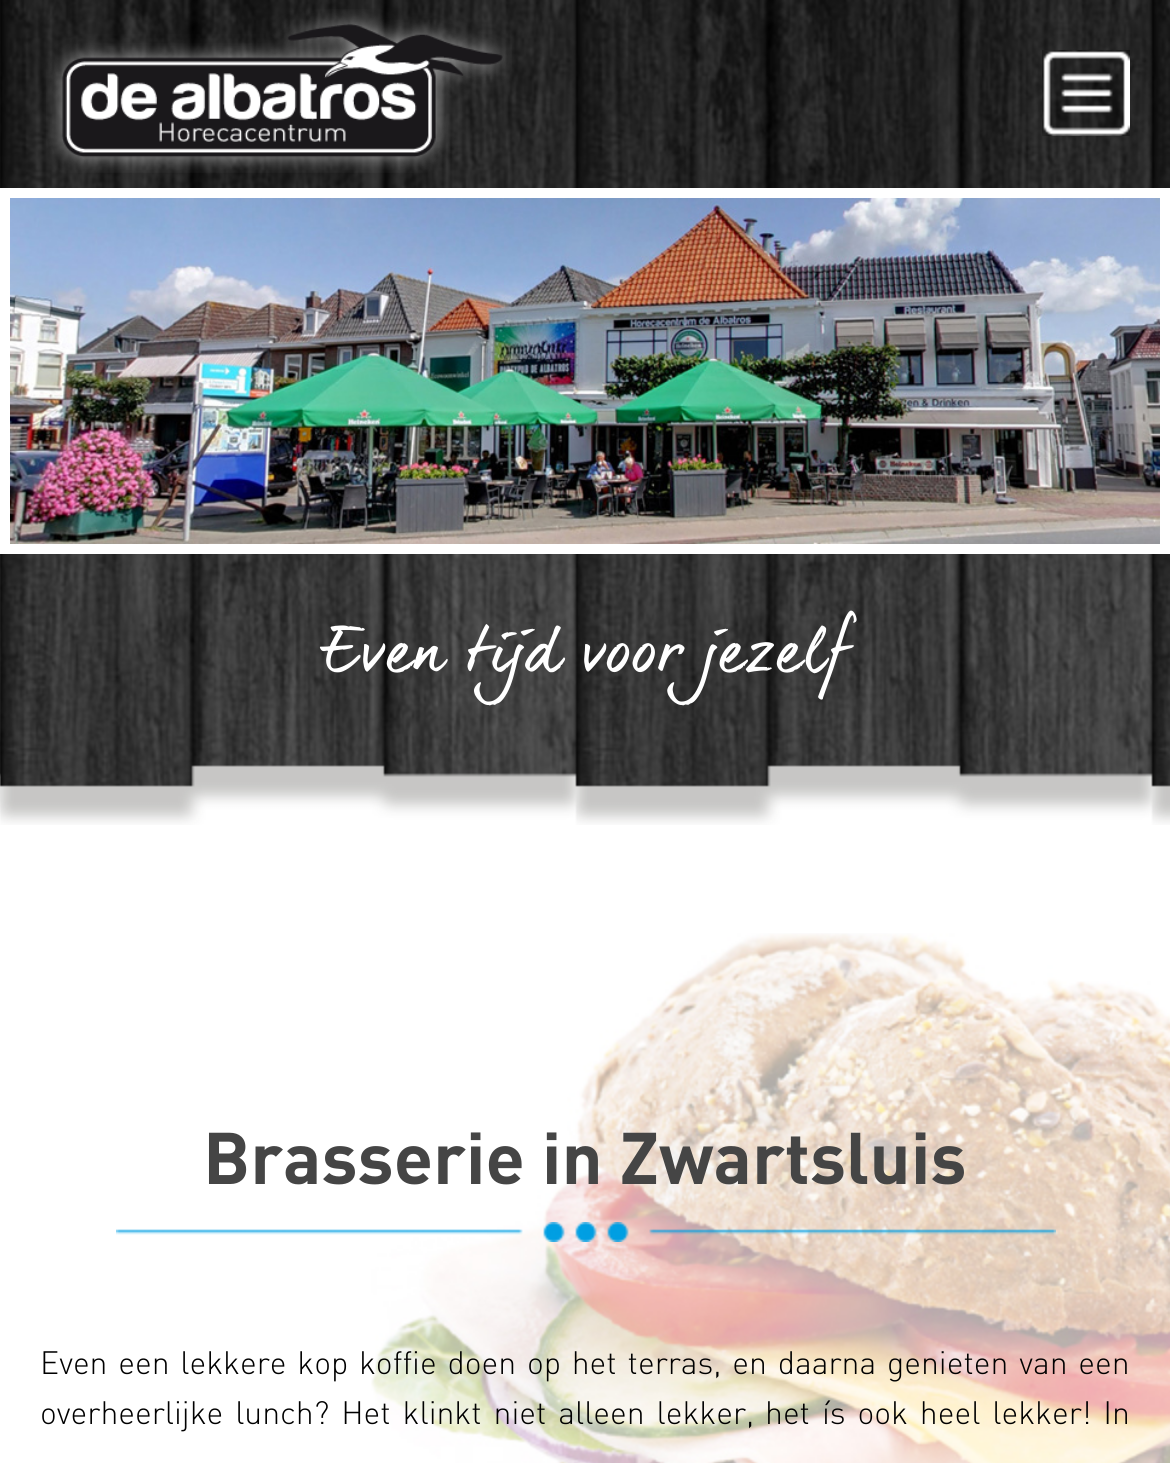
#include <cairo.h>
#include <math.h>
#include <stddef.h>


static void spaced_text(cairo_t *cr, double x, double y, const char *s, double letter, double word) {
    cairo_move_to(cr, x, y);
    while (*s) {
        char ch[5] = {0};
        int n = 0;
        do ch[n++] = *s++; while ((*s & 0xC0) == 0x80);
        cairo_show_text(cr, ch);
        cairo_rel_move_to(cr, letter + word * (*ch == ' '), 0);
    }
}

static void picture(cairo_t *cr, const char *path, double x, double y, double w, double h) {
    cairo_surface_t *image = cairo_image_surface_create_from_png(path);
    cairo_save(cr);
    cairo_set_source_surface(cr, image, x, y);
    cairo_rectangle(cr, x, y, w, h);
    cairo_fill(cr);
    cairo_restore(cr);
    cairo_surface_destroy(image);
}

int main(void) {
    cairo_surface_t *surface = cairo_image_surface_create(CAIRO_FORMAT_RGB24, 1170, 1463);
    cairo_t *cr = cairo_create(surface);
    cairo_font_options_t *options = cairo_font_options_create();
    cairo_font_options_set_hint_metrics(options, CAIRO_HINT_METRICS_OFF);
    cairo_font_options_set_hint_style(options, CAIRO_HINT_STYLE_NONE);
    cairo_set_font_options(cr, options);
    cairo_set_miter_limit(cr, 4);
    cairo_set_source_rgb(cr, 1, 1, 1);
    cairo_paint(cr);
    picture(cr, "img1.png", 0, 0, 1170, 188);
    picture(cr, "img2.png", 46, 9, 466, 164);
    picture(cr, "img3.png", 1042, 50, 88, 86);
    picture(cr, "img4.png", 10, 198, 1150, 346);
    picture(cr, "img5.png", 0, 554, 1170, 271);
    cairo_select_font_face(cr, "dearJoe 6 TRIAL", CAIRO_FONT_SLANT_NORMAL, CAIRO_FONT_WEIGHT_NORMAL);
    cairo_set_font_size(cr, 60);
    cairo_set_source_rgb(cr, 1, 1, 1);
    cairo_move_to(cr, 322, 670);
    cairo_show_text(cr, "Even tijd voor jezelf");
    picture(cr, "img6.png", 371, 933, 799, 530);
    picture(cr, "img7.png", 116, 1222, 940, 20);
    cairo_select_font_face(cr, "DIN", CAIRO_FONT_SLANT_NORMAL, CAIRO_FONT_WEIGHT_BOLD);
    cairo_set_font_size(cr, 72);
    cairo_set_source_rgb(cr, 0.271, 0.271, 0.271);
    cairo_move_to(cr, 203, 1184);
    cairo_show_text(cr, "Brasserie in Zwartsluis");
    cairo_select_font_face(cr, "DIN Light", CAIRO_FONT_SLANT_NORMAL, CAIRO_FONT_WEIGHT_NORMAL);
    cairo_set_font_size(cr, 32);
    cairo_set_source_rgb(cr, 0, 0, 0);
    spaced_text(cr, 40, 1374, "Even een lekkere kop koffie doen op het terras, en daarna genieten van een", 0, 2.6);
    spaced_text(cr, 40, 1424, "overheerlijke lunch? Het klinkt niet alleen lekker,", 0, 3.75);
    spaced_text(cr, 765, 1424, "het ís ook heel lekker! In", 0, 3.75);
    cairo_surface_write_to_png(surface, "page.png");
    cairo_font_options_destroy(options);
    cairo_destroy(cr);
    cairo_surface_destroy(surface);
    return 0;
}
